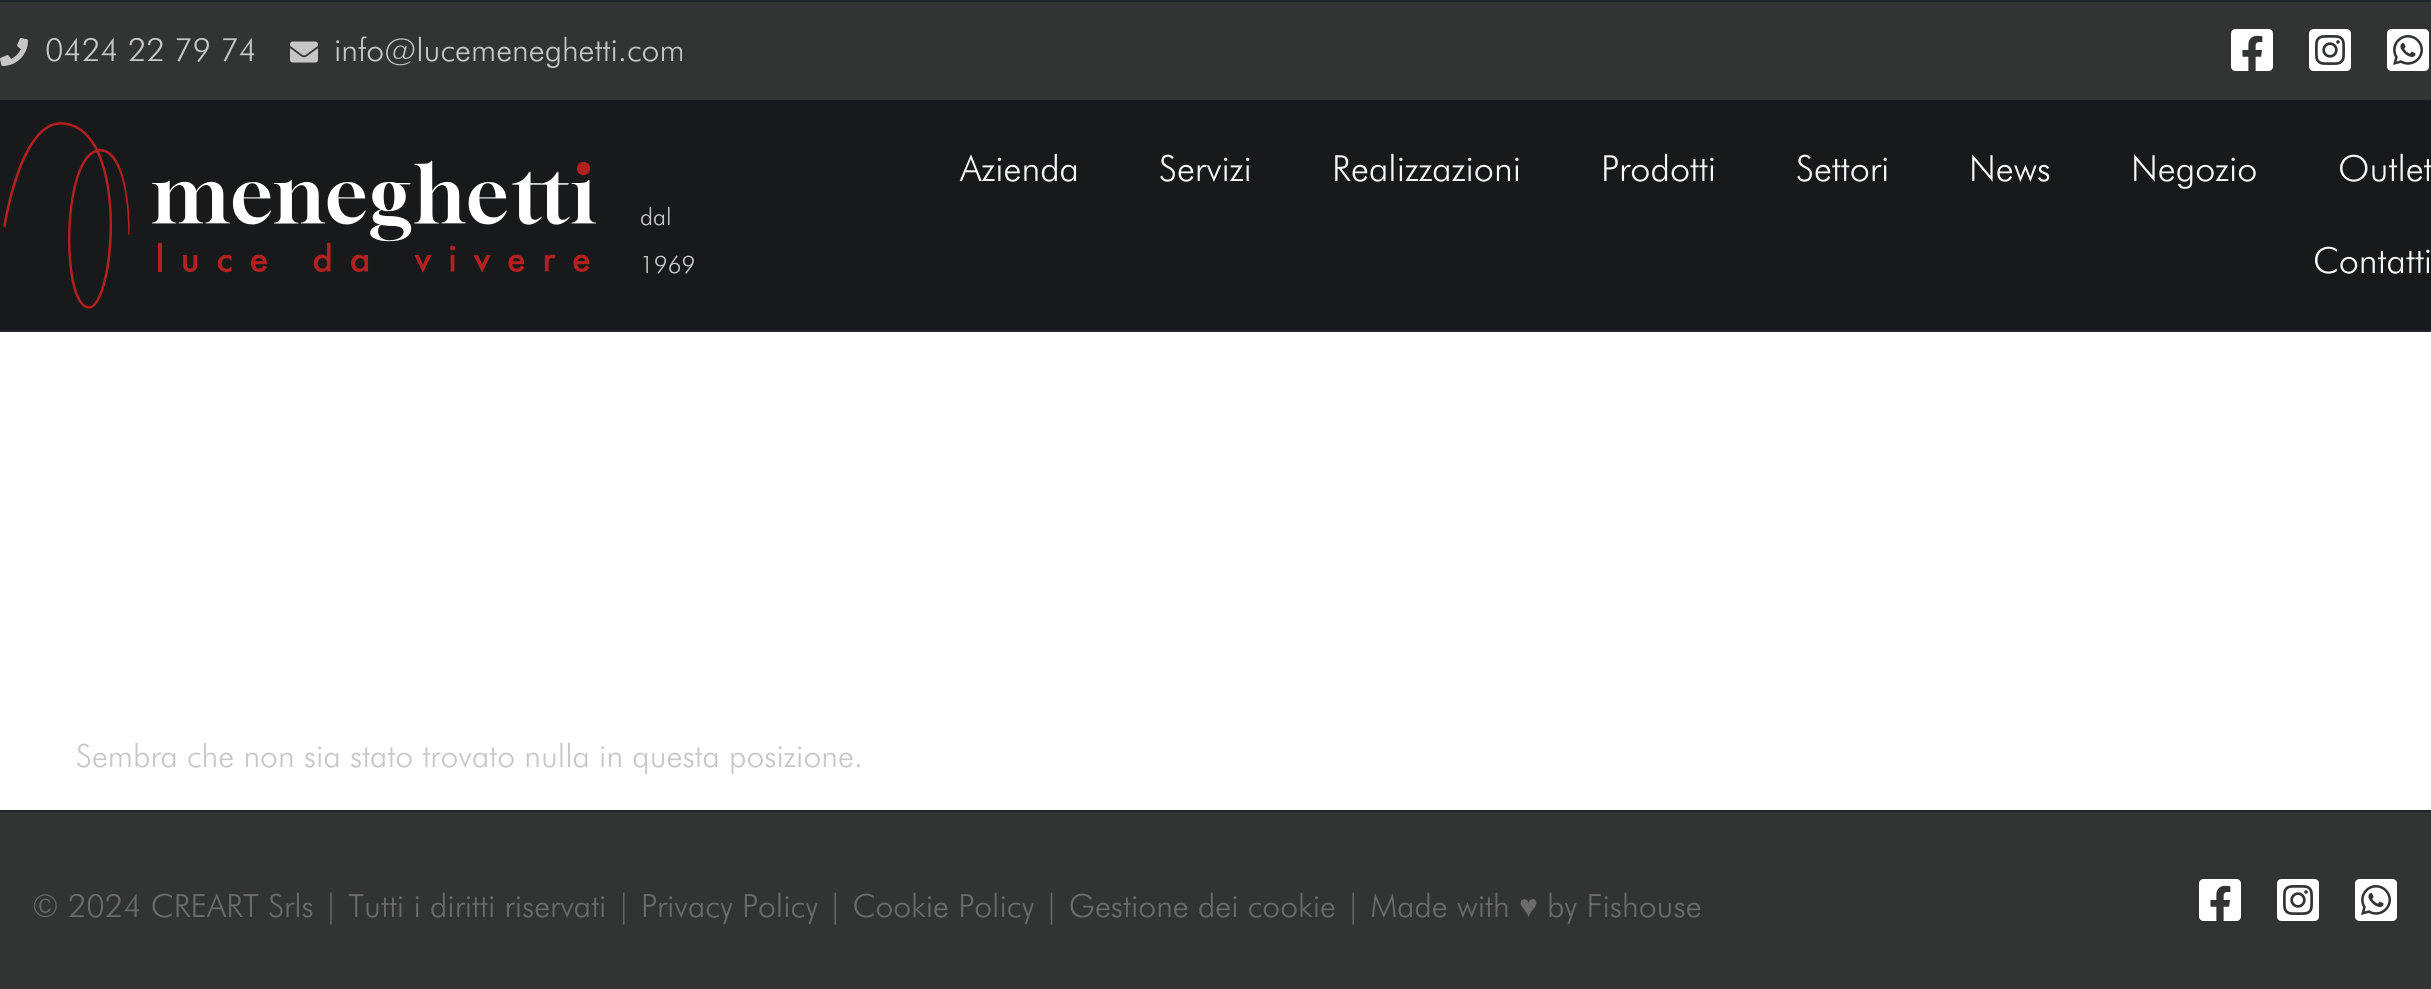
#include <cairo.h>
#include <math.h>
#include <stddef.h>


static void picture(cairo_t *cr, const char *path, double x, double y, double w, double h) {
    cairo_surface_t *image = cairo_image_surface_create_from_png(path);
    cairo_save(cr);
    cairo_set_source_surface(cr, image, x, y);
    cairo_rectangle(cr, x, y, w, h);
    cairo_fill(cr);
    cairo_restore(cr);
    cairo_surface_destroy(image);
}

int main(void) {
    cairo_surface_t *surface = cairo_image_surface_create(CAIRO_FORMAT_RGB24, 2431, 989);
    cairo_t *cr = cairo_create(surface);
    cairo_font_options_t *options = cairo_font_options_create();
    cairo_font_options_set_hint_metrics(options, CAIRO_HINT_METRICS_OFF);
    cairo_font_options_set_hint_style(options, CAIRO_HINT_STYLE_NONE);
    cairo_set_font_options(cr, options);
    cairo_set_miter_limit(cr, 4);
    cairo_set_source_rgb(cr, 1, 1, 1);
    cairo_paint(cr);
    cairo_set_source_rgb(cr, 0.196, 0.204, 0.204);
    cairo_rectangle(cr, 0, 2, 2431, 98);
    cairo_fill(cr);
    cairo_set_source_rgb(cr, 0.133, 0.145, 0.153);
    cairo_rectangle(cr, 0, 0, 2431, 2);
    cairo_fill(cr);
    picture(cr, "img1.png", 0, 38, 28, 28);
    cairo_select_font_face(cr, "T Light", CAIRO_FONT_SLANT_NORMAL, CAIRO_FONT_WEIGHT_NORMAL);
    cairo_set_font_size(cr, 32);
    cairo_set_source_rgb(cr, 0.78, 0.78, 0.78);
    cairo_move_to(cr, 45, 61);
    cairo_show_text(cr, "0424 22 79 74");
    picture(cr, "img2.png", 290, 41, 28, 22);
    cairo_move_to(cr, 334, 61);
    cairo_show_text(cr, "info@lucemeneghetti.com");
    picture(cr, "img3.png", 2231, 29, 42, 42);
    picture(cr, "img4.png", 2309, 29, 42, 42);
    picture(cr, "img5.png", 2387, 29, 42, 42);
    cairo_set_source_rgb(cr, 0.09, 0.098, 0.102);
    cairo_rectangle(cr, 0, 100, 2431, 230);
    cairo_fill(cr);
    cairo_set_source_rgb(cr, 0.133, 0.145, 0.153);
    cairo_rectangle(cr, 0, 330, 2431, 2);
    cairo_fill(cr);
    picture(cr, "img6.png", 3, 122, 593, 187);
    cairo_set_font_size(cr, 24);
    cairo_set_source_rgb(cr, 0.78, 0.78, 0.78);
    cairo_move_to(cr, 640, 225);
    cairo_show_text(cr, "dal");
    cairo_move_to(cr, 640, 273);
    cairo_show_text(cr, "1969");
    cairo_set_font_size(cr, 36);
    cairo_set_source_rgb(cr, 0.965, 0.965, 0.965);
    cairo_move_to(cr, 960, 181);
    cairo_show_text(cr, "Azienda");
    cairo_move_to(cr, 1159, 181);
    cairo_show_text(cr, "Servizi");
    cairo_move_to(cr, 1332, 181);
    cairo_show_text(cr, "Realizzazioni");
    cairo_move_to(cr, 1601, 181);
    cairo_show_text(cr, "Prodotti");
    cairo_move_to(cr, 1796, 181);
    cairo_show_text(cr, "Settori");
    cairo_move_to(cr, 1969, 181);
    cairo_show_text(cr, "News");
    cairo_move_to(cr, 2131, 181);
    cairo_show_text(cr, "Negozio");
    cairo_move_to(cr, 2338, 181);
    cairo_show_text(cr, "Outlet");
    cairo_move_to(cr, 2313, 273);
    cairo_show_text(cr, "Contatti");
    cairo_set_font_size(cr, 32);
    cairo_set_source_rgb(cr, 0.78, 0.78, 0.78);
    cairo_move_to(cr, 76, 767);
    cairo_show_text(cr, "Sembra che non sia stato trovato nulla in questa posizione.");
    cairo_set_source_rgb(cr, 0.196, 0.204, 0.204);
    cairo_rectangle(cr, 0, 812, 2431, 177);
    cairo_fill(cr);
    cairo_set_source_rgb(cr, 0.133, 0.145, 0.153);
    cairo_rectangle(cr, 0, 810, 2431, 2);
    cairo_fill(cr);
    cairo_set_source_rgb(cr, 0.42, 0.42, 0.42);
    cairo_move_to(cr, 32, 917);
    cairo_show_text(cr, "© 2024 CREART Srls | Tutti i diritti riservati | Privacy Policy | Cookie Policy | Gestione dei cookie | Made with");
    cairo_select_font_face(cr, "Liberation Sans", CAIRO_FONT_SLANT_NORMAL, CAIRO_FONT_WEIGHT_NORMAL);
    cairo_move_to(cr, 1519, 917);
    cairo_show_text(cr, "♥");
    cairo_select_font_face(cr, "T Light", CAIRO_FONT_SLANT_NORMAL, CAIRO_FONT_WEIGHT_NORMAL);
    cairo_move_to(cr, 1547, 917);
    cairo_show_text(cr, "by Fishouse");
    picture(cr, "img3.png", 2199, 879, 42, 42);
    picture(cr, "img4.png", 2277, 879, 42, 42);
    picture(cr, "img5.png", 2355, 879, 42, 42);
    cairo_surface_write_to_png(surface, "page.png");
    cairo_font_options_destroy(options);
    cairo_destroy(cr);
    cairo_surface_destroy(surface);
    return 0;
}
